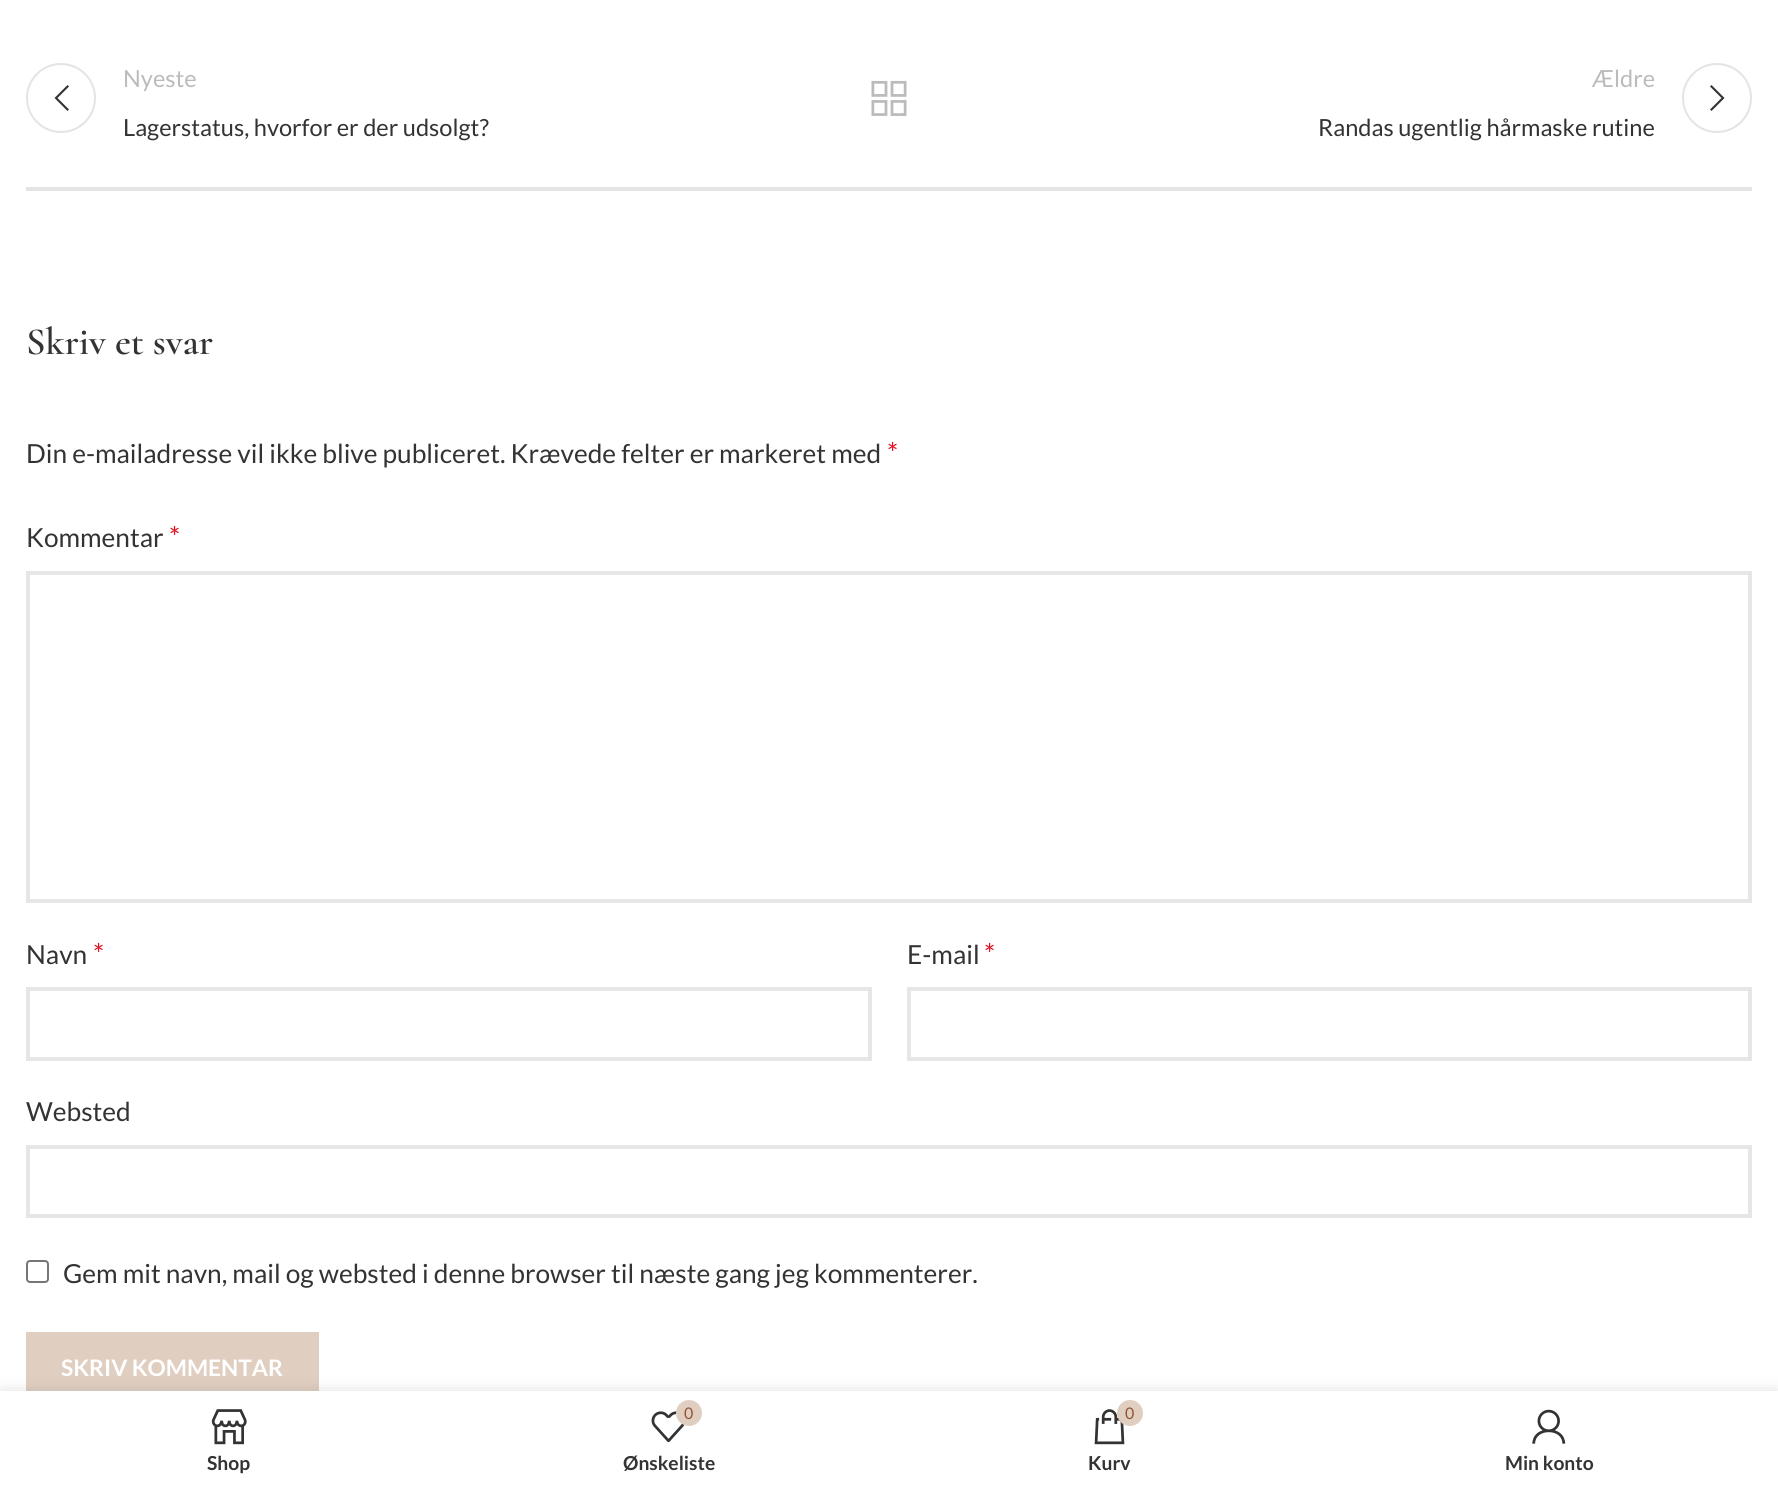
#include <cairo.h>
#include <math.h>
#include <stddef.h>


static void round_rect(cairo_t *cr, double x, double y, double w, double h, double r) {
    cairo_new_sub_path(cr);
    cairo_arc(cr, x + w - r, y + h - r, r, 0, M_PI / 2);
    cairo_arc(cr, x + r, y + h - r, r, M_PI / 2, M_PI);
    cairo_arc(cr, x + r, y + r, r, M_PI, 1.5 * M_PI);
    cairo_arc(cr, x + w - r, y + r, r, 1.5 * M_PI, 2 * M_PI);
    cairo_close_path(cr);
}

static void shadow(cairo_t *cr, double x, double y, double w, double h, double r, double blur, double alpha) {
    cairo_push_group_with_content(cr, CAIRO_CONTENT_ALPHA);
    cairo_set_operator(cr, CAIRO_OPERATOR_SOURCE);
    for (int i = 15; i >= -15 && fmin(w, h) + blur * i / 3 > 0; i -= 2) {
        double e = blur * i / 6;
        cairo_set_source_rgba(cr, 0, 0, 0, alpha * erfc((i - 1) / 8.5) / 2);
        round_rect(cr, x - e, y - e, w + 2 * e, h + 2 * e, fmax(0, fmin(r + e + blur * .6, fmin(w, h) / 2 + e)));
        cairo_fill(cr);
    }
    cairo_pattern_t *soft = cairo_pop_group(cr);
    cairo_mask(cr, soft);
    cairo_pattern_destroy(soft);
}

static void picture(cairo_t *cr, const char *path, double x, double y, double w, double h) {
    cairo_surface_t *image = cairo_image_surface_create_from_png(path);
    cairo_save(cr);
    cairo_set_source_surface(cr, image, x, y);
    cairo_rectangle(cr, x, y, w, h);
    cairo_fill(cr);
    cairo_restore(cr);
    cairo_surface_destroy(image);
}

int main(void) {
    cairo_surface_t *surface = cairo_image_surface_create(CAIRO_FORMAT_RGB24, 1778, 1486);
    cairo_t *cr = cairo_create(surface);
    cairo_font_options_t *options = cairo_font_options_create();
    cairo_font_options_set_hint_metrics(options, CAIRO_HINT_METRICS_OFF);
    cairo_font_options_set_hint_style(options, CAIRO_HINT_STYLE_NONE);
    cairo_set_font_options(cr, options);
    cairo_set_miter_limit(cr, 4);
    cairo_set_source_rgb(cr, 1, 1, 1);
    cairo_paint(cr);
    cairo_set_source_rgb(cr, 0.894, 0.894, 0.894);
    cairo_rectangle(cr, 26, 187, 1726, 4);
    cairo_fill(cr);
    cairo_arc(cr, 61, 98, 34, 0, 2 * M_PI);
    cairo_stroke(cr);
    cairo_set_source_rgb(cr, 0.2, 0.2, 0.2);
    cairo_new_path(cr);
    cairo_move_to(cr, 69, 86.5);
    cairo_line_to(cr, 67.5, 85);
    cairo_line_to(cr, 54.5, 98);
    cairo_line_to(cr, 67.5, 111);
    cairo_line_to(cr, 69, 109.5);
    cairo_line_to(cr, 57.5, 98);
    cairo_close_path(cr);
    cairo_fill(cr);
    cairo_select_font_face(cr, "Lato", CAIRO_FONT_SLANT_NORMAL, CAIRO_FONT_WEIGHT_NORMAL);
    cairo_set_font_size(cr, 23.6);
    cairo_set_source_rgb(cr, 0.733, 0.733, 0.733);
    cairo_move_to(cr, 123, 87);
    cairo_show_text(cr, "Nyeste");
    cairo_set_source_rgb(cr, 0.2, 0.2, 0.2);
    cairo_move_to(cr, 123, 136);
    cairo_show_text(cr, "Lagerstatus, hvorfor er der udsolgt?");
    picture(cr, "img1.png", 871, 80, 36, 36);
    cairo_set_source_rgb(cr, 0.733, 0.733, 0.733);
    cairo_move_to(cr, 1592, 87);
    cairo_show_text(cr, "Ældre");
    cairo_new_path(cr);
    cairo_arc(cr, 1717, 98, 34, 0, 2 * M_PI);
    cairo_set_source_rgb(cr, 0.894, 0.894, 0.894);
    cairo_stroke(cr);
    cairo_set_source_rgb(cr, 0.2, 0.2, 0.2);
    cairo_new_path(cr);
    cairo_move_to(cr, 1710, 86.5);
    cairo_line_to(cr, 1721.5, 98);
    cairo_line_to(cr, 1710, 109.5);
    cairo_line_to(cr, 1711.5, 111);
    cairo_line_to(cr, 1724.5, 98);
    cairo_line_to(cr, 1711.5, 85);
    cairo_close_path(cr);
    cairo_fill(cr);
    cairo_move_to(cr, 1318, 136);
    cairo_show_text(cr, "Randas ugentlig hårmaske rutine");
    cairo_select_font_face(cr, "Cormorant SemiBold", CAIRO_FONT_SLANT_NORMAL, CAIRO_FONT_WEIGHT_NORMAL);
    cairo_set_font_size(cr, 38.5);
    cairo_move_to(cr, 26, 354);
    cairo_show_text(cr, "Skriv et svar");
    cairo_select_font_face(cr, "Lato", CAIRO_FONT_SLANT_NORMAL, CAIRO_FONT_WEIGHT_NORMAL);
    cairo_set_font_size(cr, 26.25);
    cairo_move_to(cr, 26, 463);
    cairo_show_text(cr, "Din e-mailadresse vil ikke blive publiceret. Krævede felter er markeret med");
    cairo_set_font_size(cr, 28);
    cairo_set_source_rgb(cr, 0.878, 0.063, 0.125);
    cairo_move_to(cr, 887, 463);
    cairo_show_text(cr, "*");
    cairo_set_font_size(cr, 26.25);
    cairo_set_source_rgb(cr, 0.2, 0.2, 0.2);
    cairo_move_to(cr, 26, 547);
    cairo_show_text(cr, "Kommentar");
    cairo_set_font_size(cr, 28);
    cairo_set_source_rgb(cr, 0.878, 0.063, 0.125);
    cairo_move_to(cr, 169, 547);
    cairo_show_text(cr, "*");
    cairo_rectangle(cr, 28, 573, 1722, 328);
    cairo_set_source_rgb(cr, 0.902, 0.902, 0.902);
    cairo_set_line_width(cr, 4);
    cairo_stroke(cr);
    cairo_set_font_size(cr, 26.25);
    cairo_set_source_rgb(cr, 0.2, 0.2, 0.2);
    cairo_move_to(cr, 26, 964);
    cairo_show_text(cr, "Navn");
    cairo_set_font_size(cr, 28);
    cairo_set_source_rgb(cr, 0.878, 0.063, 0.125);
    cairo_move_to(cr, 93, 964);
    cairo_show_text(cr, "*");
    cairo_rectangle(cr, 28, 989, 842, 70);
    cairo_set_source_rgb(cr, 0.902, 0.902, 0.902);
    cairo_stroke(cr);
    cairo_set_font_size(cr, 26.25);
    cairo_set_source_rgb(cr, 0.2, 0.2, 0.2);
    cairo_move_to(cr, 907, 964);
    cairo_show_text(cr, "E-mail");
    cairo_set_font_size(cr, 28);
    cairo_set_source_rgb(cr, 0.878, 0.063, 0.125);
    cairo_move_to(cr, 984, 964);
    cairo_show_text(cr, "*");
    cairo_rectangle(cr, 909, 989, 841, 70);
    cairo_set_source_rgb(cr, 0.902, 0.902, 0.902);
    cairo_stroke(cr);
    cairo_set_font_size(cr, 26.25);
    cairo_set_source_rgb(cr, 0.2, 0.2, 0.2);
    cairo_move_to(cr, 26, 1121);
    cairo_show_text(cr, "Websted");
    cairo_rectangle(cr, 28, 1147, 1722, 69);
    cairo_set_source_rgb(cr, 0.902, 0.902, 0.902);
    cairo_stroke(cr);
    round_rect(cr, 27, 1261, 21, 21, 3);
    cairo_set_source_rgb(cr, 0.463, 0.463, 0.463);
    cairo_set_line_width(cr, 2);
    cairo_stroke(cr);
    cairo_set_source_rgb(cr, 0.2, 0.2, 0.2);
    cairo_move_to(cr, 63, 1283);
    cairo_show_text(cr, "Gem mit navn, mail og websted i denne browser til næste gang jeg kommenterer.");
    cairo_set_source_rgb(cr, 0.878, 0.808, 0.757);
    cairo_rectangle(cr, 26, 1332, 293, 59);
    cairo_fill(cr);
    cairo_select_font_face(cr, "Lato", CAIRO_FONT_SLANT_NORMAL, CAIRO_FONT_WEIGHT_BOLD);
    cairo_set_font_size(cr, 22.75);
    cairo_set_source_rgb(cr, 1, 1, 1);
    cairo_move_to(cr, 61, 1376);
    cairo_show_text(cr, "SKRIV KOMMENTAR");
    cairo_set_source_rgb(cr, 0, 0, 0);
    shadow(cr, 0, 1391, 1778, 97, 0, 8, 0.12);
    cairo_set_source_rgb(cr, 1, 1, 1);
    cairo_rectangle(cr, 0, 1391, 1778, 95);
    cairo_fill(cr);
    picture(cr, "img2.png", 211, 1409, 36, 36);
    cairo_set_font_size(cr, 19.25);
    cairo_set_source_rgb(cr, 0.2, 0.2, 0.2);
    cairo_move_to(cr, 207, 1470);
    cairo_show_text(cr, "Shop");
    picture(cr, "img3.png", 651, 1411, 34, 31);
    cairo_set_source_rgb(cr, 0.878, 0.808, 0.757);
    cairo_arc(cr, 689, 1413, 13, 0, 2 * M_PI);
    cairo_fill(cr);
    cairo_select_font_face(cr, "Lato", CAIRO_FONT_SLANT_NORMAL, CAIRO_FONT_WEIGHT_NORMAL);
    cairo_set_font_size(cr, 16);
    cairo_set_source_rgb(cr, 0.576, 0.329, 0.212);
    cairo_move_to(cr, 684, 1419);
    cairo_show_text(cr, "0");
    cairo_select_font_face(cr, "Lato", CAIRO_FONT_SLANT_NORMAL, CAIRO_FONT_WEIGHT_BOLD);
    cairo_set_font_size(cr, 19.25);
    cairo_set_source_rgb(cr, 0.2, 0.2, 0.2);
    cairo_move_to(cr, 623, 1470);
    cairo_show_text(cr, "Ønskeliste");
    picture(cr, "img4.png", 1094, 1409, 31, 36);
    cairo_set_source_rgb(cr, 0.878, 0.808, 0.757);
    cairo_arc(cr, 1130, 1413, 13, 0, 2 * M_PI);
    cairo_fill(cr);
    cairo_select_font_face(cr, "Lato", CAIRO_FONT_SLANT_NORMAL, CAIRO_FONT_WEIGHT_NORMAL);
    cairo_set_font_size(cr, 16);
    cairo_set_source_rgb(cr, 0.576, 0.329, 0.212);
    cairo_move_to(cr, 1125, 1419);
    cairo_show_text(cr, "0");
    cairo_select_font_face(cr, "Lato", CAIRO_FONT_SLANT_NORMAL, CAIRO_FONT_WEIGHT_BOLD);
    cairo_set_font_size(cr, 19.25);
    cairo_set_source_rgb(cr, 0.2, 0.2, 0.2);
    cairo_move_to(cr, 1088, 1470);
    cairo_show_text(cr, "Kurv");
    picture(cr, "img5.png", 1532, 1409, 34, 35);
    cairo_move_to(cr, 1505, 1470);
    cairo_show_text(cr, "Min konto");
    cairo_surface_write_to_png(surface, "page.png");
    cairo_font_options_destroy(options);
    cairo_destroy(cr);
    cairo_surface_destroy(surface);
    return 0;
}
